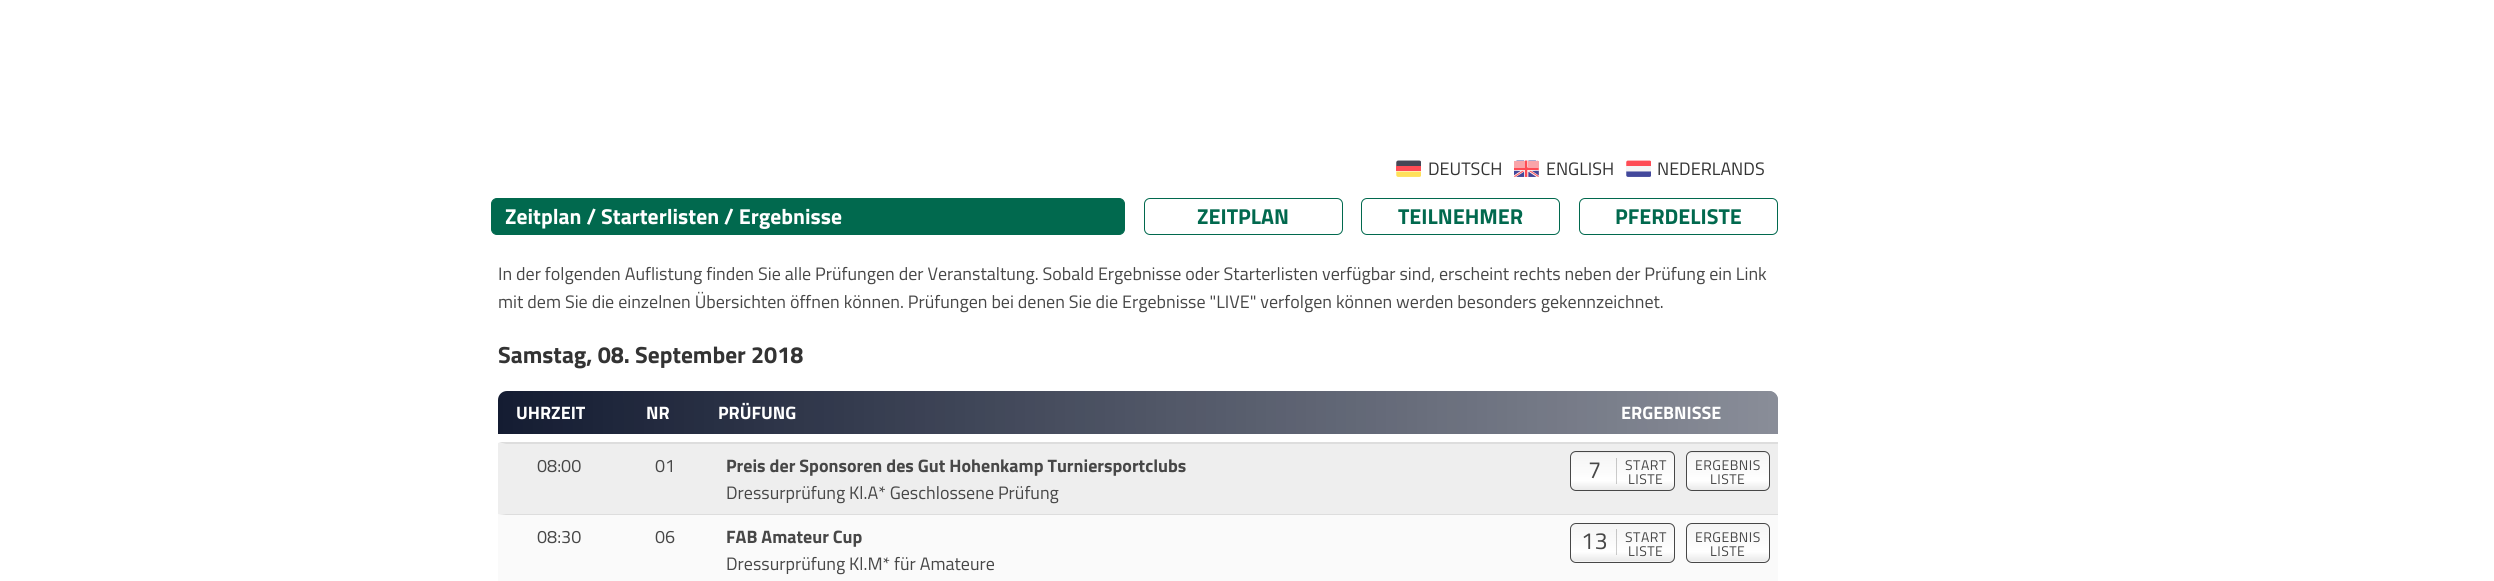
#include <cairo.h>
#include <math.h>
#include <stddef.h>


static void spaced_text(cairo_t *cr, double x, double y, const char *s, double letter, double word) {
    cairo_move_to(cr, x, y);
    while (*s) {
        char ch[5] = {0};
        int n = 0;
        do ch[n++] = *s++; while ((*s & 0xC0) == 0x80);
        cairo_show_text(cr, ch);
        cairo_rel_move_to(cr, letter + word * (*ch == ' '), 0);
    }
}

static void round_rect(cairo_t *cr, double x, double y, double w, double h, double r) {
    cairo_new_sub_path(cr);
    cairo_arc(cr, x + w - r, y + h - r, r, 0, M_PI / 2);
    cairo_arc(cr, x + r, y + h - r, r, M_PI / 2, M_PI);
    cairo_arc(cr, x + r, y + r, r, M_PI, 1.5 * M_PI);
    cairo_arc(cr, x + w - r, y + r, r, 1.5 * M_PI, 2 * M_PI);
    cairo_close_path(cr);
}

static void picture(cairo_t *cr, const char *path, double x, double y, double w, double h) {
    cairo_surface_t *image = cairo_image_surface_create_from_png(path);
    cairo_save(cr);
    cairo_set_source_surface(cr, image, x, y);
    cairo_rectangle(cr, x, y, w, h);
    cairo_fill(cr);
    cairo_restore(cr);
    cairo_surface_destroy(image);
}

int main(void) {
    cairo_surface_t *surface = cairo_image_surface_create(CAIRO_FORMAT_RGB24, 2494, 581);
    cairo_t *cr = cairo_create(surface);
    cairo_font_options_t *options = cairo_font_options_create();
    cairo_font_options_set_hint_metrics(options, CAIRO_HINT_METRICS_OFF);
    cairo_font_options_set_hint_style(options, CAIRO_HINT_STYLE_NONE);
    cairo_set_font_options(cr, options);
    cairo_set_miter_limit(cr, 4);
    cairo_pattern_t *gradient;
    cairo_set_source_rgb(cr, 1, 1, 1);
    cairo_paint(cr);
    picture(cr, "img1.png", 1396, 160, 25, 17);
    cairo_select_font_face(cr, "Titillium Web", CAIRO_FONT_SLANT_NORMAL, CAIRO_FONT_WEIGHT_NORMAL);
    cairo_set_font_size(cr, 18);
    cairo_set_source_rgb(cr, 0.2, 0.2, 0.2);
    cairo_move_to(cr, 1428, 175);
    cairo_show_text(cr, "DEUTSCH");
    picture(cr, "img2.png", 1514, 160, 25, 17);
    cairo_move_to(cr, 1546, 175);
    cairo_show_text(cr, "ENGLISH");
    picture(cr, "img3.png", 1626, 160, 25, 17);
    cairo_move_to(cr, 1657, 175);
    cairo_show_text(cr, "NEDERLANDS");
    cairo_set_source_rgb(cr, 0.004, 0.412, 0.306);
    round_rect(cr, 491.5, 198.5, 633, 36, 5.5);
    cairo_fill_preserve(cr);
    cairo_set_line_width(cr, 1);
    cairo_stroke(cr);
    cairo_select_font_face(cr, "Titillium Web", CAIRO_FONT_SLANT_NORMAL, CAIRO_FONT_WEIGHT_BOLD);
    cairo_set_font_size(cr, 21.6);
    cairo_set_source_rgb(cr, 1, 1, 1);
    cairo_move_to(cr, 505, 224);
    cairo_show_text(cr, "Zeitplan / Starterlisten / Ergebnisse");
    round_rect(cr, 1144.5, 198.5, 198, 36, 5.5);
    cairo_set_source_rgb(cr, 0.004, 0.412, 0.306);
    cairo_stroke(cr);
    cairo_move_to(cr, 1197, 224);
    cairo_show_text(cr, "ZEITPLAN");
    round_rect(cr, 1361.5, 198.5, 198, 36, 5.5);
    cairo_stroke(cr);
    cairo_move_to(cr, 1398, 224);
    cairo_show_text(cr, "TEILNEHMER");
    round_rect(cr, 1579.5, 198.5, 198, 36, 5.5);
    cairo_stroke(cr);
    cairo_move_to(cr, 1615, 224);
    cairo_show_text(cr, "PFERDELISTE");
    cairo_select_font_face(cr, "Titillium Web", CAIRO_FONT_SLANT_NORMAL, CAIRO_FONT_WEIGHT_NORMAL);
    cairo_set_font_size(cr, 18);
    cairo_set_source_rgb(cr, 0.278, 0.278, 0.278);
    cairo_move_to(cr, 498, 280);
    cairo_show_text(cr, "In der folgenden Auflistung finden Sie alle Prüfungen der Veranstaltung. Sobald Ergebnisse oder Starterlisten verfügbar sind, erscheint rechts neben der Prüfung ein Link");
    cairo_move_to(cr, 498, 308);
    cairo_show_text(cr, "mit dem Sie die einzelnen Übersichten öffnen können. Prüfungen bei denen Sie die Ergebnisse \"LIVE\" verfolgen können werden besonders gekennzeichnet.");
    cairo_select_font_face(cr, "Titillium Web", CAIRO_FONT_SLANT_NORMAL, CAIRO_FONT_WEIGHT_BOLD);
    cairo_set_font_size(cr, 23.4);
    cairo_set_source_rgb(cr, 0.2, 0.2, 0.2);
    cairo_move_to(cr, 498, 363);
    cairo_show_text(cr, "Samstag, 08. September 2018");
    cairo_set_source_rgb(cr, 0.082, 0.11, 0.196);
    cairo_new_path(cr);
    cairo_move_to(cr, 507, 391);
    cairo_line_to(cr, 1769, 391);
    cairo_curve_to(cr, 1774, 391, 1778, 395, 1778, 400);
    cairo_line_to(cr, 1778, 434);
    cairo_line_to(cr, 498, 434);
    cairo_line_to(cr, 498, 400);
    cairo_curve_to(cr, 498, 395, 502, 391, 507, 391);
    cairo_close_path(cr);
    cairo_fill(cr);
    gradient = cairo_pattern_create_linear(498, 413, 1778, 412);
    cairo_pattern_add_color_stop_rgba(gradient, 0, 1, 1, 1, 0);
    cairo_pattern_add_color_stop_rgba(gradient, 1, 1, 1, 1, 0.5);
    cairo_set_source(cr, gradient);
    cairo_pattern_destroy(gradient);
    cairo_new_path(cr);
    cairo_move_to(cr, 507, 391);
    cairo_line_to(cr, 1769, 391);
    cairo_curve_to(cr, 1774, 391, 1778, 395, 1778, 400);
    cairo_line_to(cr, 1778, 434);
    cairo_line_to(cr, 498, 434);
    cairo_line_to(cr, 498, 400);
    cairo_curve_to(cr, 498, 395, 502, 391, 507, 391);
    cairo_close_path(cr);
    cairo_fill(cr);
    cairo_set_font_size(cr, 18);
    cairo_set_source_rgb(cr, 1, 1, 1);
    cairo_move_to(cr, 516, 419);
    cairo_show_text(cr, "UHRZEIT");
    cairo_move_to(cr, 646, 419);
    cairo_show_text(cr, "NR");
    cairo_move_to(cr, 718, 419);
    cairo_show_text(cr, "PRÜFUNG");
    cairo_move_to(cr, 1621, 419);
    cairo_show_text(cr, "ERGEBNISSE");
    cairo_set_source_rgb(cr, 0.933, 0.933, 0.933);
    cairo_rectangle(cr, 498, 443, 1280, 71);
    cairo_fill(cr);
    cairo_set_source_rgb(cr, 0.867, 0.867, 0.867);
    cairo_new_path(cr);
    cairo_move_to(cr, 498, 442);
    cairo_line_to(cr, 1778, 442);
    cairo_line_to(cr, 1778, 444);
    cairo_line_to(cr, 506, 444);
    cairo_close_path(cr);
    cairo_fill(cr);
    cairo_select_font_face(cr, "Titillium Web", CAIRO_FONT_SLANT_NORMAL, CAIRO_FONT_WEIGHT_NORMAL);
    cairo_set_source_rgb(cr, 0.278, 0.278, 0.278);
    cairo_move_to(cr, 537, 472);
    cairo_show_text(cr, "08:00");
    cairo_move_to(cr, 655, 472);
    cairo_show_text(cr, "01");
    cairo_select_font_face(cr, "Titillium Web", CAIRO_FONT_SLANT_NORMAL, CAIRO_FONT_WEIGHT_BOLD);
    cairo_move_to(cr, 726, 472);
    cairo_show_text(cr, "Preis der Sponsoren des Gut Hohenkamp Turniersportclubs");
    cairo_select_font_face(cr, "Titillium Web", CAIRO_FONT_SLANT_NORMAL, CAIRO_FONT_WEIGHT_NORMAL);
    cairo_move_to(cr, 726, 499);
    cairo_show_text(cr, "Dressurprüfung Kl.A* Geschlossene Prüfung");
    cairo_save(cr);
    round_rect(cr, 1570, 451, 105, 40, 6);
    cairo_clip(cr);
    gradient = cairo_pattern_create_linear(1623, 453, 1623, 415);
    cairo_pattern_add_color_stop_rgba(gradient, 0, 0.914, 0.914, 0.914, 1);
    cairo_pattern_add_color_stop_rgba(gradient, 0.25, 1, 1, 1, 1);
    cairo_pattern_add_color_stop_rgba(gradient, 0.5, 0.984, 0.984, 0.984, 1);
    cairo_pattern_add_color_stop_rgba(gradient, 0.75, 0.973, 0.973, 0.973, 1);
    cairo_pattern_add_color_stop_rgba(gradient, 1, 0.957, 0.957, 0.957, 1);
    cairo_set_source(cr, gradient);
    cairo_pattern_destroy(gradient);
    cairo_rectangle(cr, 1570, 451, 105, 2);
    cairo_fill(cr);
    gradient = cairo_pattern_create_linear(1623, 490, 1623, 453);
    cairo_pattern_add_color_stop_rgba(gradient, 0, 0.914, 0.914, 0.914, 1);
    cairo_pattern_add_color_stop_rgba(gradient, 0.25, 1, 1, 1, 1);
    cairo_pattern_add_color_stop_rgba(gradient, 0.5, 0.984, 0.984, 0.984, 1);
    cairo_pattern_add_color_stop_rgba(gradient, 0.75, 0.973, 0.973, 0.973, 1);
    cairo_pattern_add_color_stop_rgba(gradient, 1, 0.957, 0.957, 0.957, 1);
    cairo_set_source(cr, gradient);
    cairo_pattern_destroy(gradient);
    cairo_rectangle(cr, 1570, 453, 105, 37);
    cairo_fill(cr);
    cairo_restore(cr);
    gradient = cairo_pattern_create_linear(1623, 490, 1623, 453);
    cairo_pattern_add_color_stop_rgba(gradient, 0, 0.729, 0.729, 0.729, 1);
    cairo_pattern_add_color_stop_rgba(gradient, 0.25, 0.8, 0.8, 0.8, 1);
    cairo_pattern_add_color_stop_rgba(gradient, 0.5, 0.788, 0.788, 0.788, 1);
    cairo_pattern_add_color_stop_rgba(gradient, 0.75, 0.776, 0.776, 0.776, 1);
    cairo_pattern_add_color_stop_rgba(gradient, 1, 0.765, 0.765, 0.765, 1);
    cairo_set_source(cr, gradient);
    cairo_pattern_destroy(gradient);
    cairo_rectangle(cr, 1616, 458, 1, 26);
    cairo_fill(cr);
    round_rect(cr, 1570.5, 451.5, 104, 39, 5.5);
    cairo_set_source_rgb(cr, 0.278, 0.278, 0.278);
    cairo_stroke(cr);
    cairo_set_font_size(cr, 23.4);
    spaced_text(cr, 1588, 478, "7", 0.5, 0);
    cairo_set_font_size(cr, 14);
    spaced_text(cr, 1625, 470, "START", 0.5, 0);
    spaced_text(cr, 1628, 484, "LISTE", 0.5, 0);
    cairo_save(cr);
    round_rect(cr, 1686, 451, 84, 40, 6);
    cairo_clip(cr);
    gradient = cairo_pattern_create_linear(1728, 453, 1728, 415);
    cairo_pattern_add_color_stop_rgba(gradient, 0, 0.914, 0.914, 0.914, 1);
    cairo_pattern_add_color_stop_rgba(gradient, 0.25, 1, 1, 1, 1);
    cairo_pattern_add_color_stop_rgba(gradient, 0.5, 0.984, 0.984, 0.984, 1);
    cairo_pattern_add_color_stop_rgba(gradient, 0.75, 0.973, 0.973, 0.973, 1);
    cairo_pattern_add_color_stop_rgba(gradient, 1, 0.957, 0.957, 0.957, 1);
    cairo_set_source(cr, gradient);
    cairo_pattern_destroy(gradient);
    cairo_rectangle(cr, 1686, 451, 84, 2);
    cairo_fill(cr);
    gradient = cairo_pattern_create_linear(1728, 490, 1728, 453);
    cairo_pattern_add_color_stop_rgba(gradient, 0, 0.914, 0.914, 0.914, 1);
    cairo_pattern_add_color_stop_rgba(gradient, 0.25, 1, 1, 1, 1);
    cairo_pattern_add_color_stop_rgba(gradient, 0.5, 0.984, 0.984, 0.984, 1);
    cairo_pattern_add_color_stop_rgba(gradient, 0.75, 0.973, 0.973, 0.973, 1);
    cairo_pattern_add_color_stop_rgba(gradient, 1, 0.957, 0.957, 0.957, 1);
    cairo_set_source(cr, gradient);
    cairo_pattern_destroy(gradient);
    cairo_rectangle(cr, 1686, 453, 84, 37);
    cairo_fill(cr);
    cairo_restore(cr);
    round_rect(cr, 1686.5, 451.5, 83, 39, 5.5);
    cairo_stroke(cr);
    spaced_text(cr, 1695, 470, "ERGEBNIS", 0.5, 0);
    spaced_text(cr, 1710, 484, "LISTE", 0.5, 0);
    cairo_set_source_rgb(cr, 0.98, 0.98, 0.98);
    cairo_rectangle(cr, 498, 514, 1280, 67);
    cairo_fill(cr);
    cairo_set_source_rgb(cr, 0.867, 0.867, 0.867);
    cairo_new_path(cr);
    cairo_move_to(cr, 498, 514);
    cairo_line_to(cr, 1778, 514);
    cairo_line_to(cr, 1778, 515);
    cairo_line_to(cr, 506, 515);
    cairo_close_path(cr);
    cairo_fill(cr);
    cairo_set_font_size(cr, 18);
    cairo_set_source_rgb(cr, 0.278, 0.278, 0.278);
    cairo_move_to(cr, 537, 543);
    cairo_show_text(cr, "08:30");
    cairo_move_to(cr, 655, 543);
    cairo_show_text(cr, "06");
    cairo_select_font_face(cr, "Titillium Web", CAIRO_FONT_SLANT_NORMAL, CAIRO_FONT_WEIGHT_BOLD);
    cairo_move_to(cr, 726, 543);
    cairo_show_text(cr, "FAB Amateur Cup");
    cairo_select_font_face(cr, "Titillium Web", CAIRO_FONT_SLANT_NORMAL, CAIRO_FONT_WEIGHT_NORMAL);
    cairo_move_to(cr, 726, 570);
    cairo_show_text(cr, "Dressurprüfung Kl.M* für Amateure");
    cairo_save(cr);
    round_rect(cr, 1570, 523, 105, 40, 6);
    cairo_clip(cr);
    gradient = cairo_pattern_create_linear(1623, 561, 1623, 524);
    cairo_pattern_add_color_stop_rgba(gradient, 0, 0.914, 0.914, 0.914, 1);
    cairo_pattern_add_color_stop_rgba(gradient, 0.25, 1, 1, 1, 1);
    cairo_pattern_add_color_stop_rgba(gradient, 0.5, 0.984, 0.984, 0.984, 1);
    cairo_pattern_add_color_stop_rgba(gradient, 0.75, 0.973, 0.973, 0.973, 1);
    cairo_pattern_add_color_stop_rgba(gradient, 1, 0.957, 0.957, 0.957, 1);
    cairo_set_source(cr, gradient);
    cairo_pattern_destroy(gradient);
    cairo_rectangle(cr, 1570, 524, 105, 37);
    cairo_fill(cr);
    cairo_restore(cr);
    gradient = cairo_pattern_create_linear(1623, 561, 1623, 524);
    cairo_pattern_add_color_stop_rgba(gradient, 0, 0.729, 0.729, 0.729, 1);
    cairo_pattern_add_color_stop_rgba(gradient, 0.25, 0.8, 0.8, 0.8, 1);
    cairo_pattern_add_color_stop_rgba(gradient, 0.5, 0.788, 0.788, 0.788, 1);
    cairo_pattern_add_color_stop_rgba(gradient, 0.75, 0.776, 0.776, 0.776, 1);
    cairo_pattern_add_color_stop_rgba(gradient, 1, 0.765, 0.765, 0.765, 1);
    cairo_set_source(cr, gradient);
    cairo_pattern_destroy(gradient);
    cairo_rectangle(cr, 1616, 529, 1, 26);
    cairo_fill(cr);
    cairo_save(cr);
    round_rect(cr, 1570, 523, 105, 40, 6);
    cairo_clip(cr);
    gradient = cairo_pattern_create_linear(1623, 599, 1623, 561);
    cairo_pattern_add_color_stop_rgba(gradient, 0, 0.914, 0.914, 0.914, 1);
    cairo_pattern_add_color_stop_rgba(gradient, 0.25, 1, 1, 1, 1);
    cairo_pattern_add_color_stop_rgba(gradient, 0.5, 0.984, 0.984, 0.984, 1);
    cairo_pattern_add_color_stop_rgba(gradient, 0.75, 0.973, 0.973, 0.973, 1);
    cairo_pattern_add_color_stop_rgba(gradient, 1, 0.957, 0.957, 0.957, 1);
    cairo_set_source(cr, gradient);
    cairo_pattern_destroy(gradient);
    cairo_rectangle(cr, 1570, 561, 105, 2);
    cairo_fill(cr);
    cairo_restore(cr);
    round_rect(cr, 1570.5, 523.5, 104, 39, 5.5);
    cairo_set_source_rgb(cr, 0.278, 0.278, 0.278);
    cairo_stroke(cr);
    cairo_set_font_size(cr, 23.4);
    spaced_text(cr, 1581, 549, "13", 0.5, 0);
    cairo_set_font_size(cr, 14);
    spaced_text(cr, 1625, 542, "START", 0.5, 0);
    spaced_text(cr, 1628, 556, "LISTE", 0.5, 0);
    cairo_save(cr);
    round_rect(cr, 1686, 523, 84, 40, 6);
    cairo_clip(cr);
    gradient = cairo_pattern_create_linear(1728, 561, 1728, 524);
    cairo_pattern_add_color_stop_rgba(gradient, 0, 0.914, 0.914, 0.914, 1);
    cairo_pattern_add_color_stop_rgba(gradient, 0.25, 1, 1, 1, 1);
    cairo_pattern_add_color_stop_rgba(gradient, 0.5, 0.984, 0.984, 0.984, 1);
    cairo_pattern_add_color_stop_rgba(gradient, 0.75, 0.973, 0.973, 0.973, 1);
    cairo_pattern_add_color_stop_rgba(gradient, 1, 0.957, 0.957, 0.957, 1);
    cairo_set_source(cr, gradient);
    cairo_pattern_destroy(gradient);
    cairo_rectangle(cr, 1686, 524, 84, 37);
    cairo_fill(cr);
    gradient = cairo_pattern_create_linear(1728, 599, 1728, 561);
    cairo_pattern_add_color_stop_rgba(gradient, 0, 0.914, 0.914, 0.914, 1);
    cairo_pattern_add_color_stop_rgba(gradient, 0.25, 1, 1, 1, 1);
    cairo_pattern_add_color_stop_rgba(gradient, 0.5, 0.984, 0.984, 0.984, 1);
    cairo_pattern_add_color_stop_rgba(gradient, 0.75, 0.973, 0.973, 0.973, 1);
    cairo_pattern_add_color_stop_rgba(gradient, 1, 0.957, 0.957, 0.957, 1);
    cairo_set_source(cr, gradient);
    cairo_pattern_destroy(gradient);
    cairo_rectangle(cr, 1686, 561, 84, 2);
    cairo_fill(cr);
    cairo_restore(cr);
    round_rect(cr, 1686.5, 523.5, 83, 39, 5.5);
    cairo_stroke(cr);
    spaced_text(cr, 1695, 542, "ERGEBNIS", 0.5, 0);
    spaced_text(cr, 1710, 556, "LISTE", 0.5, 0);
    cairo_surface_write_to_png(surface, "page.png");
    cairo_font_options_destroy(options);
    cairo_destroy(cr);
    cairo_surface_destroy(surface);
    return 0;
}
